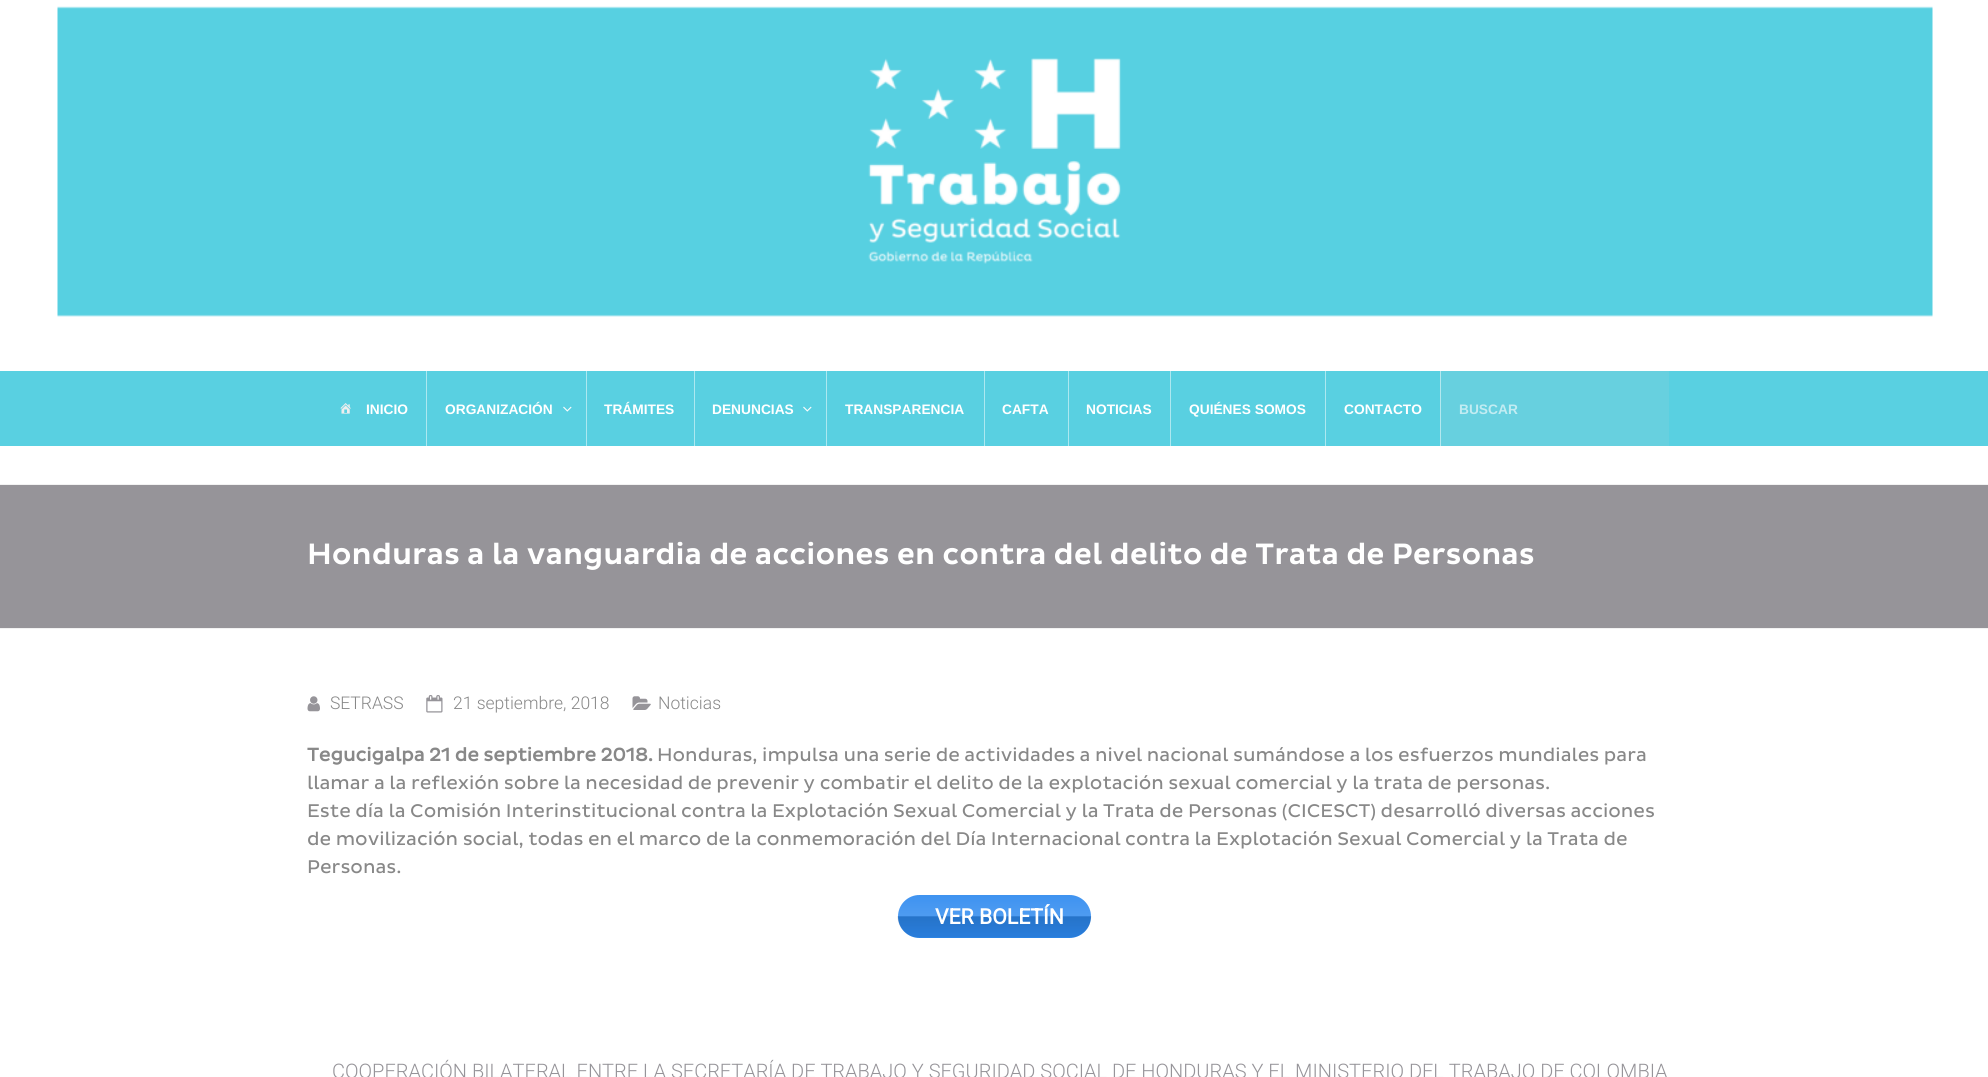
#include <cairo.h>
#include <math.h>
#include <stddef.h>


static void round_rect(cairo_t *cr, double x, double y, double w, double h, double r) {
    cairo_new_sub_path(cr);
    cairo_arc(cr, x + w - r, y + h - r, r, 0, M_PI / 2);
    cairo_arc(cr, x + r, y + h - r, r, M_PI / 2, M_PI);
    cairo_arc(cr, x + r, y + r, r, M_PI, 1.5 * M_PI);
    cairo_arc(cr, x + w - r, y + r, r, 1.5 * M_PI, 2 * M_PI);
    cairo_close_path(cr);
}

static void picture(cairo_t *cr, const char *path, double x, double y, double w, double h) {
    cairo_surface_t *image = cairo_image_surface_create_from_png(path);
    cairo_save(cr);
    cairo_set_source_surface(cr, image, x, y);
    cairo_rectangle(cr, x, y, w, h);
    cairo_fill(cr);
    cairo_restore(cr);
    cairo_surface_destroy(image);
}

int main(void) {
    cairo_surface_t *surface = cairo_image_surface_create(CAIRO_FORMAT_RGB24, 1988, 1077);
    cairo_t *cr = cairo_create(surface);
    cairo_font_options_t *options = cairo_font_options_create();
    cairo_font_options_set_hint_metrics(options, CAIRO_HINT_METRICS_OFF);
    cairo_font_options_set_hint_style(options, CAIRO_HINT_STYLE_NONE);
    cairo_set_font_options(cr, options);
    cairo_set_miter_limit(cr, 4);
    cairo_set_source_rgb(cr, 1, 1, 1);
    cairo_paint(cr);
    cairo_set_source_rgb(cr, 0.949, 0.949, 0.949);
    cairo_rectangle(cr, 0, 484, 1988, 1);
    cairo_fill(cr);
    picture(cr, "img1.png", 57, 6, 1876, 311);
    cairo_set_source_rgb(cr, 0.349, 0.816, 0.882);
    cairo_rectangle(cr, 0, 371, 1988, 75);
    cairo_fill(cr);
    picture(cr, "img2.png", 340, 403, 11, 11);
    cairo_select_font_face(cr, "Liberation Sans", CAIRO_FONT_SLANT_NORMAL, CAIRO_FONT_WEIGHT_BOLD);
    cairo_set_font_size(cr, 13.75);
    cairo_set_source_rgb(cr, 1, 1, 1);
    cairo_move_to(cr, 366, 414);
    cairo_show_text(cr, "INICIO");
    cairo_set_source_rgb(cr, 0.675, 0.91, 0.941);
    cairo_rectangle(cr, 426, 371, 1, 75);
    cairo_fill(cr);
    cairo_set_source_rgb(cr, 1, 1, 1);
    cairo_move_to(cr, 445, 414);
    cairo_show_text(cr, "ORGANIZACIÓN");
    picture(cr, "img3.png", 563, 406, 9, 6);
    cairo_set_source_rgb(cr, 0.675, 0.91, 0.941);
    cairo_rectangle(cr, 586, 371, 1, 75);
    cairo_fill(cr);
    cairo_set_source_rgb(cr, 1, 1, 1);
    cairo_move_to(cr, 604, 414);
    cairo_show_text(cr, "TRÁMITES");
    cairo_set_source_rgb(cr, 0.675, 0.91, 0.941);
    cairo_rectangle(cr, 694, 371, 1, 75);
    cairo_fill(cr);
    cairo_set_source_rgb(cr, 1, 1, 1);
    cairo_move_to(cr, 712, 414);
    cairo_show_text(cr, "DENUNCIAS");
    picture(cr, "img3.png", 803, 406, 9, 6);
    cairo_set_source_rgb(cr, 0.675, 0.91, 0.941);
    cairo_rectangle(cr, 826, 371, 1, 75);
    cairo_fill(cr);
    cairo_set_source_rgb(cr, 1, 1, 1);
    cairo_move_to(cr, 845, 414);
    cairo_show_text(cr, "TRANSPARENCIA");
    cairo_set_source_rgb(cr, 0.675, 0.91, 0.941);
    cairo_rectangle(cr, 984, 371, 1, 75);
    cairo_fill(cr);
    cairo_set_source_rgb(cr, 1, 1, 1);
    cairo_move_to(cr, 1002, 414);
    cairo_show_text(cr, "CAFTA");
    cairo_set_source_rgb(cr, 0.675, 0.91, 0.941);
    cairo_rectangle(cr, 1068, 371, 1, 75);
    cairo_fill(cr);
    cairo_set_source_rgb(cr, 1, 1, 1);
    cairo_move_to(cr, 1086, 414);
    cairo_show_text(cr, "NOTICIAS");
    cairo_set_source_rgb(cr, 0.675, 0.91, 0.941);
    cairo_rectangle(cr, 1170, 371, 1, 75);
    cairo_fill(cr);
    cairo_set_source_rgb(cr, 1, 1, 1);
    cairo_move_to(cr, 1189, 414);
    cairo_show_text(cr, "QUIÉNES SOMOS");
    cairo_set_source_rgb(cr, 0.675, 0.91, 0.941);
    cairo_rectangle(cr, 1325, 371, 1, 75);
    cairo_fill(cr);
    cairo_set_source_rgb(cr, 1, 1, 1);
    cairo_move_to(cr, 1344, 414);
    cairo_show_text(cr, "CONTACTO");
    cairo_set_source_rgb(cr, 0.702, 0.91, 0.937);
    cairo_rectangle(cr, 1440, 371, 1, 75);
    cairo_fill(cr);
    cairo_set_source_rgb(cr, 0.404, 0.816, 0.875);
    cairo_rectangle(cr, 1441, 371, 228, 75);
    cairo_fill(cr);
    cairo_set_source_rgb(cr, 0.761, 0.925, 0.949);
    cairo_move_to(cr, 1459, 414);
    cairo_show_text(cr, "BUSCAR");
    cairo_set_source_rgb(cr, 0.588, 0.58, 0.6);
    cairo_rectangle(cr, 0, 485, 1988, 143);
    cairo_fill(cr);
    cairo_set_source_rgb(cr, 0.949, 0.949, 0.949);
    cairo_rectangle(cr, 0, 628, 1988, 1);
    cairo_fill(cr);
    cairo_select_font_face(cr, "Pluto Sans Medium", CAIRO_FONT_SLANT_NORMAL, CAIRO_FONT_WEIGHT_NORMAL);
    cairo_set_font_size(cr, 30);
    cairo_set_source_rgb(cr, 1, 1, 1);
    cairo_move_to(cr, 307, 564);
    cairo_show_text(cr, "Honduras a la vanguardia de acciones en contra del delito de Trata de Personas");
    picture(cr, "img4.png", 307, 696, 13, 16);
    cairo_select_font_face(cr, "Roboto Light", CAIRO_FONT_SLANT_NORMAL, CAIRO_FONT_WEIGHT_NORMAL);
    cairo_set_font_size(cr, 17.5);
    cairo_set_source_rgb(cr, 0.533, 0.533, 0.533);
    cairo_move_to(cr, 330, 709);
    cairo_show_text(cr, "SETRASS");
    picture(cr, "img5.png", 426, 695, 17, 18);
    cairo_move_to(cr, 453, 709);
    cairo_show_text(cr, "21 septiembre, 2018");
    picture(cr, "img6.png", 632, 696, 19, 14);
    cairo_move_to(cr, 658, 709);
    cairo_show_text(cr, "Noticias");
    cairo_select_font_face(cr, "Pluto Sans", CAIRO_FONT_SLANT_NORMAL, CAIRO_FONT_WEIGHT_BOLD);
    cairo_set_font_size(cr, 18.75);
    cairo_move_to(cr, 307, 761);
    cairo_show_text(cr, "Tegucigalpa 21 de septiembre 2018.");
    cairo_select_font_face(cr, "Pluto Sans", CAIRO_FONT_SLANT_NORMAL, CAIRO_FONT_WEIGHT_NORMAL);
    cairo_move_to(cr, 657, 761);
    cairo_show_text(cr, "Honduras, impulsa una serie de actividades a nivel nacional sumándose a los esfuerzos mundiales para");
    cairo_move_to(cr, 307, 789);
    cairo_show_text(cr, "llamar a la reflexión sobre la necesidad de prevenir y combatir el delito de la explotación sexual comercial y la trata de personas.");
    cairo_move_to(cr, 307, 817);
    cairo_show_text(cr, "Este día la Comisión Interinstitucional contra la Explotación Sexual Comercial y la Trata de Personas (CICESCT) desarrolló diversas acciones");
    cairo_move_to(cr, 307, 845);
    cairo_show_text(cr, "de movilización social, todas en el marco de la conmemoración del Día Internacional contra la Explotación Sexual Comercial y la Trata de");
    cairo_move_to(cr, 307, 873);
    cairo_show_text(cr, "Personas.");
    cairo_set_source_rgb(cr, 0.176, 0.537, 0.937);
    round_rect(cr, 898, 895, 193, 43, 21.5);
    cairo_fill(cr);
    picture(cr, "img7.png", 897, 895, 195, 43);
    cairo_select_font_face(cr, "Roboto", CAIRO_FONT_SLANT_NORMAL, CAIRO_FONT_WEIGHT_BOLD);
    cairo_set_font_size(cr, 21.25);
    cairo_set_source_rgb(cr, 1, 1, 1);
    cairo_move_to(cr, 935, 924);
    cairo_show_text(cr, "VER BOLETÍN");
    cairo_select_font_face(cr, "Roboto Light", CAIRO_FONT_SLANT_NORMAL, CAIRO_FONT_WEIGHT_NORMAL);
    cairo_set_font_size(cr, 20);
    cairo_set_source_rgb(cr, 0.588, 0.58, 0.6);
    cairo_move_to(cr, 332, 1078);
    cairo_show_text(cr, "COOPERACIÓN BILATERAL ENTRE LA SECRETARÍA DE TRABAJO Y SEGURIDAD SOCIAL DE HONDURAS Y EL MINISTERIO DEL TRABAJO DE COLOMBIA");
    cairo_surface_write_to_png(surface, "page.png");
    cairo_font_options_destroy(options);
    cairo_destroy(cr);
    cairo_surface_destroy(surface);
    return 0;
}
